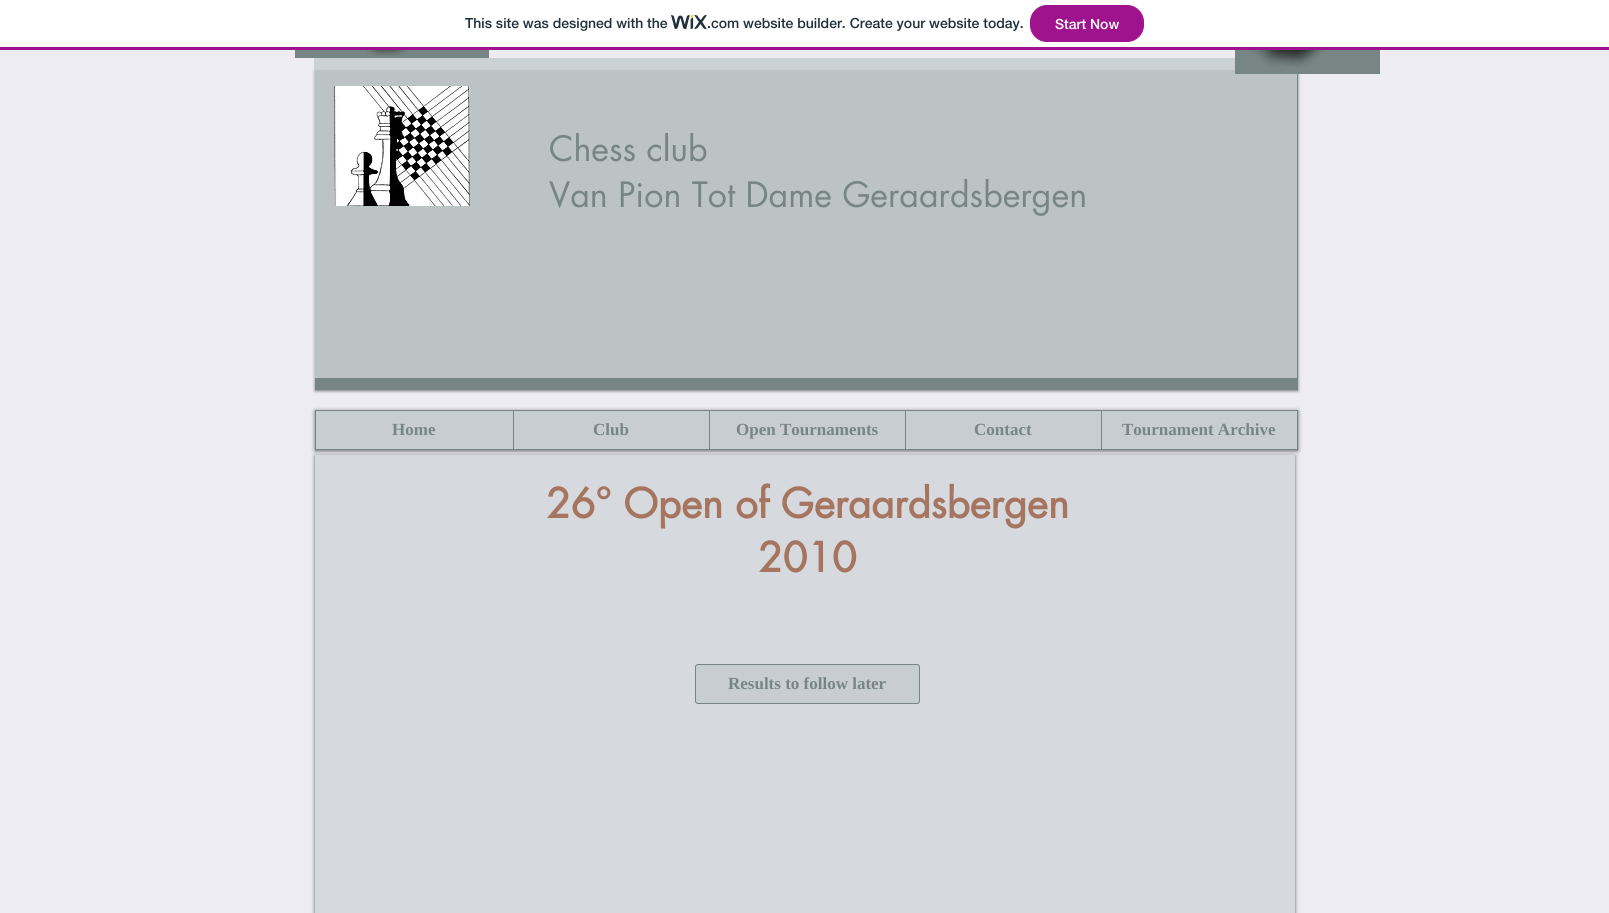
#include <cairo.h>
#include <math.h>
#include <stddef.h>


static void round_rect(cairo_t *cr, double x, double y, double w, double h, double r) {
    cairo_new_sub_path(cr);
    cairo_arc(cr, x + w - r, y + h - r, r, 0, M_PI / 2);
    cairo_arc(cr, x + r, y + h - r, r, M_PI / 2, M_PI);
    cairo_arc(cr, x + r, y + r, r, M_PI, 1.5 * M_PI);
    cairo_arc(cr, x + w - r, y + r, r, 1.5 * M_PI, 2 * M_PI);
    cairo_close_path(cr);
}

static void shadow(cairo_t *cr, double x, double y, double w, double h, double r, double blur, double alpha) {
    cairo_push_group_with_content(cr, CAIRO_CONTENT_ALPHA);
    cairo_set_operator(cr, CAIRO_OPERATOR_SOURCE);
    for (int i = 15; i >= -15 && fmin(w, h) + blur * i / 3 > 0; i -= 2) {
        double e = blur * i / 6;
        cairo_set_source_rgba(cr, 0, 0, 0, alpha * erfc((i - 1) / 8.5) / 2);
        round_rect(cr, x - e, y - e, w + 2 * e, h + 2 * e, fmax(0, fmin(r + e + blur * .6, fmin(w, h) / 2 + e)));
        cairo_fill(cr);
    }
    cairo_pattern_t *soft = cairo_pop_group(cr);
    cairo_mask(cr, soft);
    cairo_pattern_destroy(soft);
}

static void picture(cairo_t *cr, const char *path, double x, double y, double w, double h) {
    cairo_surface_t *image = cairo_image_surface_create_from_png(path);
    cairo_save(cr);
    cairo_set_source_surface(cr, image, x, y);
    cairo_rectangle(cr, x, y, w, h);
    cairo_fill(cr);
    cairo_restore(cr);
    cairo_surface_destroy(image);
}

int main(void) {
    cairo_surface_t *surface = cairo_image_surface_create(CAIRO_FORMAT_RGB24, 1609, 913);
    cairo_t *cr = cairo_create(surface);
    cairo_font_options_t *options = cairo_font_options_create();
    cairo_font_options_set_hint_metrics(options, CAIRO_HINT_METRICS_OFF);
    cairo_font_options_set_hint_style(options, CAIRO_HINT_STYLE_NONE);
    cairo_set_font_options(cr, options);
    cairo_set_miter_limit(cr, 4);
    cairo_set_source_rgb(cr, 0.929, 0.922, 0.949);
    cairo_paint(cr);
    cairo_set_source_rgb(cr, 1, 1, 1);
    cairo_rectangle(cr, 0, 0, 1609, 47);
    cairo_fill(cr);
    cairo_set_source_rgb(cr, 0.627, 0.075, 0.557);
    cairo_rectangle(cr, 0, 47, 1609, 3);
    cairo_fill(cr);
    cairo_select_font_face(cr, "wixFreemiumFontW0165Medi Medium", CAIRO_FONT_SLANT_NORMAL, CAIRO_FONT_WEIGHT_NORMAL);
    cairo_set_font_size(cr, 14);
    cairo_set_source_rgb(cr, 0.125, 0.188, 0.235);
    cairo_move_to(cr, 465, 28);
    cairo_show_text(cr, "This site was designed with the");
    picture(cr, "img1.png", 671, 15, 36, 15);
    cairo_move_to(cr, 707, 28);
    cairo_show_text(cr, ".com website builder. Create your website today.");
    cairo_set_source_rgb(cr, 0.627, 0.075, 0.557);
    round_rect(cr, 1030.5, 5.5, 113, 36, 16.5);
    cairo_fill_preserve(cr);
    cairo_set_line_width(cr, 1);
    cairo_stroke(cr);
    cairo_set_source_rgb(cr, 1, 1, 1);
    cairo_move_to(cr, 1055, 29);
    cairo_show_text(cr, "Start Now");
    cairo_set_source_rgb(cr, 0.467, 0.525, 0.518);
    cairo_rectangle(cr, 295, 50, 194, 8);
    cairo_fill(cr);
    picture(cr, "img2.png", 366, 50, 42, 6);
    cairo_set_source_rgb(cr, 0, 0, 0);
    shadow(cr, 315, 71, 983, 320, 0, 1.5, 0.5);
    cairo_set_source_rgb(cr, 0.467, 0.525, 0.518);
    cairo_rectangle(cr, 315, 70, 983, 320);
    cairo_fill(cr);
    cairo_set_source_rgba(cr, 0.78, 0.804, 0.816, 0.86);
    cairo_rectangle(cr, 314, 58, 983, 320);
    cairo_fill(cr);
    cairo_set_source_rgb(cr, 0.467, 0.525, 0.518);
    cairo_rectangle(cr, 1235, 50, 145, 24);
    cairo_fill(cr);
    picture(cr, "img3.png", 1249, 50, 76, 17);
    picture(cr, "img4.png", 334, 86, 136, 120);
    cairo_select_font_face(cr, "futura", CAIRO_FONT_SLANT_NORMAL, CAIRO_FONT_WEIGHT_NORMAL);
    cairo_set_font_size(cr, 34);
    cairo_move_to(cr, 549, 161);
    cairo_show_text(cr, "Chess club");
    cairo_move_to(cr, 549, 207);
    cairo_show_text(cr, "Van Pion Tot Dame Geraardsbergen");
    cairo_set_source_rgb(cr, 0, 0, 0);
    shadow(cr, 315, 411, 983, 40, 0, 2, 0.6);
    cairo_set_source_rgb(cr, 0.78, 0.804, 0.816);
    cairo_rectangle(cr, 315.5, 410.5, 982, 39);
    cairo_fill_preserve(cr);
    cairo_set_source_rgb(cr, 0.467, 0.525, 0.518);
    cairo_stroke(cr);
    cairo_select_font_face(cr, "Liberation Serif", CAIRO_FONT_SLANT_NORMAL, CAIRO_FONT_WEIGHT_BOLD);
    cairo_set_font_size(cr, 17);
    cairo_move_to(cr, 392, 435);
    cairo_show_text(cr, "Home");
    cairo_rectangle(cr, 513, 411, 1, 38);
    cairo_fill(cr);
    cairo_move_to(cr, 593, 435);
    cairo_show_text(cr, "Club");
    cairo_rectangle(cr, 709, 411, 1, 38);
    cairo_fill(cr);
    cairo_move_to(cr, 736, 435);
    cairo_show_text(cr, "Open Tournaments");
    cairo_rectangle(cr, 905, 411, 1, 38);
    cairo_fill(cr);
    cairo_move_to(cr, 974, 435);
    cairo_show_text(cr, "Contact");
    cairo_rectangle(cr, 1101, 411, 1, 38);
    cairo_fill(cr);
    cairo_move_to(cr, 1122, 435);
    cairo_show_text(cr, "Tournament Archive");
    cairo_set_source_rgb(cr, 0, 0, 0);
    shadow(cr, 315, 456, 980, 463, 0, 2, 0.6);
    cairo_set_source_rgb(cr, 0.839, 0.851, 0.867);
    cairo_rectangle(cr, 315, 455, 980, 458);
    cairo_fill(cr);
    cairo_select_font_face(cr, "futura", CAIRO_FONT_SLANT_NORMAL, CAIRO_FONT_WEIGHT_BOLD);
    cairo_set_font_size(cr, 40);
    cairo_set_source_rgb(cr, 0.651, 0.459, 0.376);
    cairo_move_to(cr, 546, 518);
    cairo_show_text(cr, "26° Open of Geraardsbergen");
    cairo_move_to(cr, 758, 572);
    cairo_show_text(cr, "2010");
    cairo_set_source_rgb(cr, 0.78, 0.804, 0.816);
    round_rect(cr, 695.5, 664.5, 224, 39, 2.5);
    cairo_fill_preserve(cr);
    cairo_set_source_rgb(cr, 0.467, 0.525, 0.518);
    cairo_stroke(cr);
    cairo_select_font_face(cr, "Liberation Serif", CAIRO_FONT_SLANT_NORMAL, CAIRO_FONT_WEIGHT_BOLD);
    cairo_set_font_size(cr, 17);
    cairo_move_to(cr, 728, 689);
    cairo_show_text(cr, "Results to follow later");
    cairo_surface_write_to_png(surface, "page.png");
    cairo_font_options_destroy(options);
    cairo_destroy(cr);
    cairo_surface_destroy(surface);
    return 0;
}
